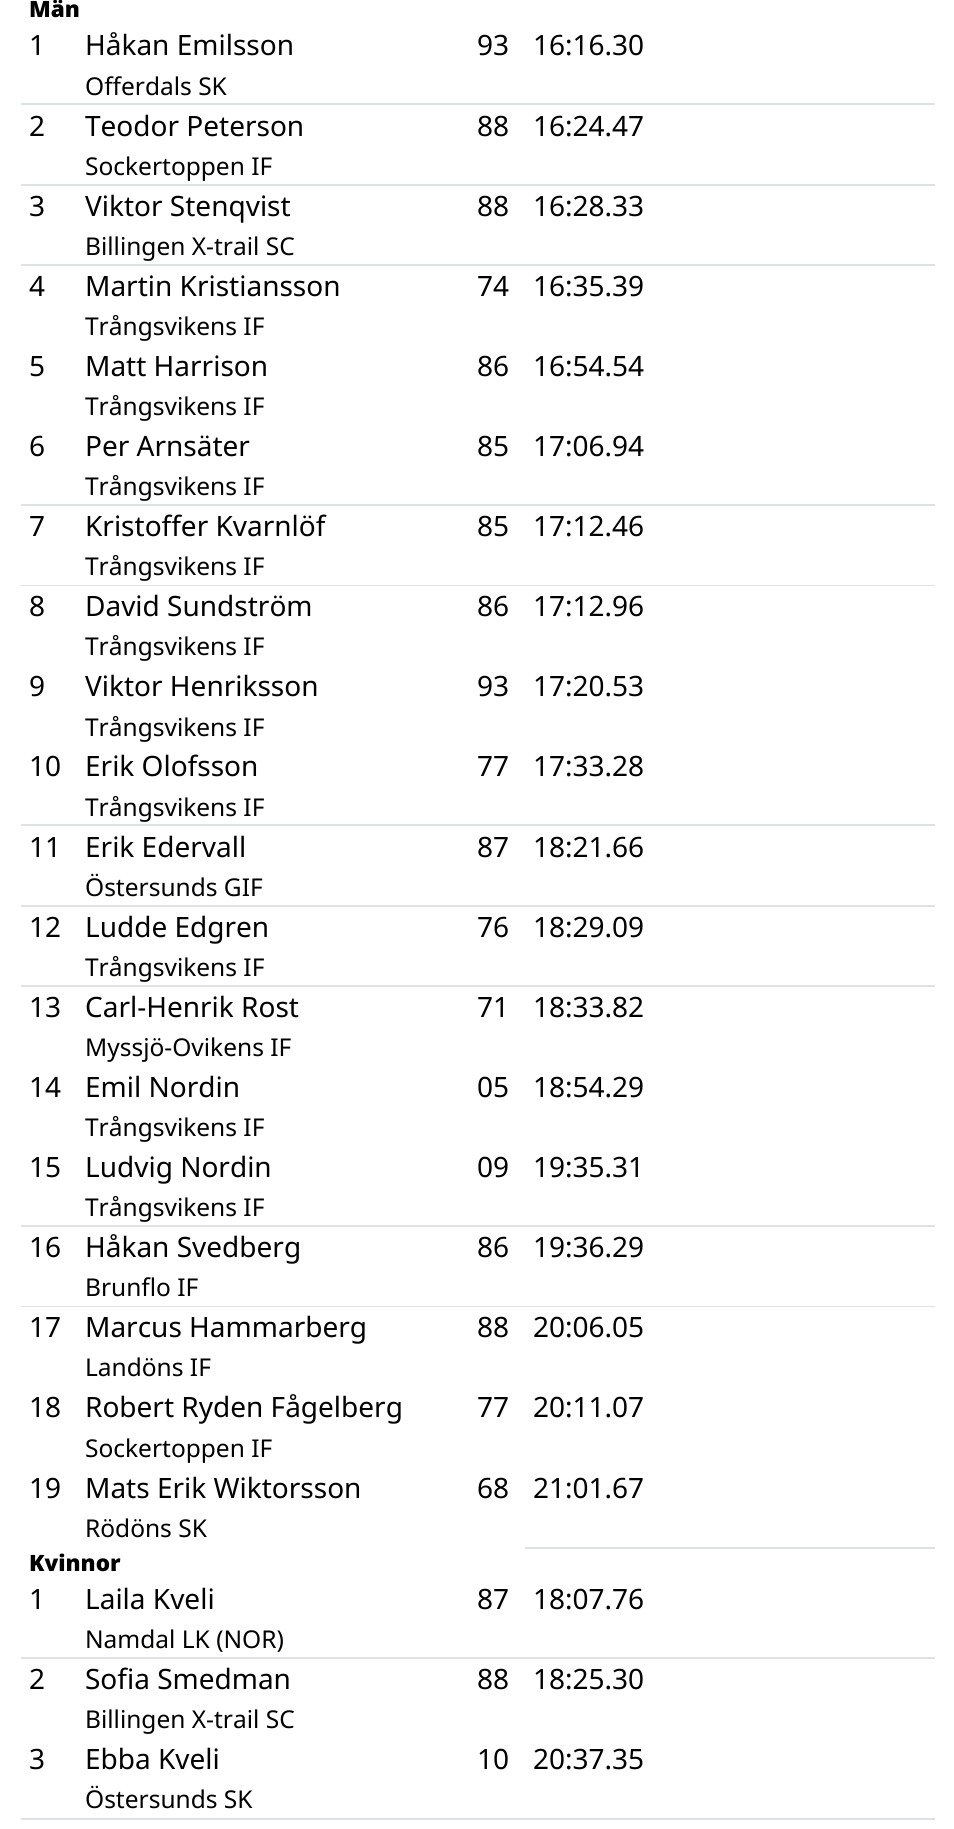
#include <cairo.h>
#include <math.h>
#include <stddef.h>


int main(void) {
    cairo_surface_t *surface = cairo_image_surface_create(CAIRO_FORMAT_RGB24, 954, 1829);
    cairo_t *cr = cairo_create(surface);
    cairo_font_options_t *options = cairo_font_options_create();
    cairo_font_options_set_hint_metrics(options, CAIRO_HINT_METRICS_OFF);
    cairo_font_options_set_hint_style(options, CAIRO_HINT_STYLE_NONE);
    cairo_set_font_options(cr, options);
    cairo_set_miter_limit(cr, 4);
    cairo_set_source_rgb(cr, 1, 1, 1);
    cairo_paint(cr);
    cairo_select_font_face(cr, "Noto Sans Black", CAIRO_FONT_SLANT_NORMAL, CAIRO_FONT_WEIGHT_NORMAL);
    cairo_set_font_size(cr, 22.5);
    cairo_set_source_rgb(cr, 0, 0, 0);
    cairo_move_to(cr, 29, 17);
    cairo_show_text(cr, "Män");
    cairo_select_font_face(cr, "Noto Sans", CAIRO_FONT_SLANT_NORMAL, CAIRO_FONT_WEIGHT_NORMAL);
    cairo_set_font_size(cr, 28);
    cairo_move_to(cr, 29, 55);
    cairo_show_text(cr, "1");
    cairo_move_to(cr, 85, 55);
    cairo_show_text(cr, "Håkan Emilsson");
    cairo_set_font_size(cr, 24.5);
    cairo_move_to(cr, 85, 95);
    cairo_show_text(cr, "Offerdals SK");
    cairo_set_font_size(cr, 28);
    cairo_move_to(cr, 477, 55);
    cairo_show_text(cr, "93");
    cairo_move_to(cr, 533, 55);
    cairo_show_text(cr, "16:16.30");
    cairo_set_source_rgb(cr, 0.871, 0.886, 0.902);
    cairo_rectangle(cr, 21, 103, 914, 2);
    cairo_fill(cr);
    cairo_set_source_rgb(cr, 0, 0, 0);
    cairo_move_to(cr, 29, 136);
    cairo_show_text(cr, "2");
    cairo_move_to(cr, 85, 136);
    cairo_show_text(cr, "Teodor Peterson");
    cairo_set_font_size(cr, 24.5);
    cairo_move_to(cr, 85, 175);
    cairo_show_text(cr, "Sockertoppen IF");
    cairo_set_font_size(cr, 28);
    cairo_move_to(cr, 477, 136);
    cairo_show_text(cr, "88");
    cairo_move_to(cr, 533, 136);
    cairo_show_text(cr, "16:24.47");
    cairo_set_source_rgb(cr, 0.871, 0.886, 0.902);
    cairo_rectangle(cr, 21, 184, 914, 2);
    cairo_fill(cr);
    cairo_set_source_rgb(cr, 0, 0, 0);
    cairo_move_to(cr, 29, 216);
    cairo_show_text(cr, "3");
    cairo_move_to(cr, 85, 216);
    cairo_show_text(cr, "Viktor Stenqvist");
    cairo_set_font_size(cr, 24.5);
    cairo_move_to(cr, 85, 255);
    cairo_show_text(cr, "Billingen X-trail SC");
    cairo_set_font_size(cr, 28);
    cairo_move_to(cr, 477, 216);
    cairo_show_text(cr, "88");
    cairo_move_to(cr, 533, 216);
    cairo_show_text(cr, "16:28.33");
    cairo_set_source_rgb(cr, 0.871, 0.886, 0.902);
    cairo_rectangle(cr, 21, 264, 914, 2);
    cairo_fill(cr);
    cairo_set_source_rgb(cr, 0, 0, 0);
    cairo_move_to(cr, 29, 296);
    cairo_show_text(cr, "4");
    cairo_move_to(cr, 85, 296);
    cairo_show_text(cr, "Martin Kristiansson");
    cairo_set_font_size(cr, 24.5);
    cairo_move_to(cr, 85, 335);
    cairo_show_text(cr, "Trångsvikens IF");
    cairo_set_font_size(cr, 28);
    cairo_move_to(cr, 477, 296);
    cairo_show_text(cr, "74");
    cairo_move_to(cr, 533, 296);
    cairo_show_text(cr, "16:35.39");
    cairo_move_to(cr, 29, 376);
    cairo_show_text(cr, "5");
    cairo_move_to(cr, 85, 376);
    cairo_show_text(cr, "Matt Harrison");
    cairo_set_font_size(cr, 24.5);
    cairo_move_to(cr, 85, 415);
    cairo_show_text(cr, "Trångsvikens IF");
    cairo_set_font_size(cr, 28);
    cairo_move_to(cr, 477, 376);
    cairo_show_text(cr, "86");
    cairo_move_to(cr, 533, 376);
    cairo_show_text(cr, "16:54.54");
    cairo_move_to(cr, 29, 456);
    cairo_show_text(cr, "6");
    cairo_move_to(cr, 85, 456);
    cairo_show_text(cr, "Per Arnsäter");
    cairo_set_font_size(cr, 24.5);
    cairo_move_to(cr, 85, 495);
    cairo_show_text(cr, "Trångsvikens IF");
    cairo_set_font_size(cr, 28);
    cairo_move_to(cr, 477, 456);
    cairo_show_text(cr, "85");
    cairo_move_to(cr, 533, 456);
    cairo_show_text(cr, "17:06.94");
    cairo_set_source_rgb(cr, 0.871, 0.886, 0.902);
    cairo_rectangle(cr, 21, 504, 914, 2);
    cairo_fill(cr);
    cairo_set_source_rgb(cr, 0, 0, 0);
    cairo_move_to(cr, 29, 536);
    cairo_show_text(cr, "7");
    cairo_move_to(cr, 85, 536);
    cairo_show_text(cr, "Kristoffer Kvarnlöf");
    cairo_set_font_size(cr, 24.5);
    cairo_move_to(cr, 85, 575);
    cairo_show_text(cr, "Trångsvikens IF");
    cairo_set_font_size(cr, 28);
    cairo_move_to(cr, 477, 536);
    cairo_show_text(cr, "85");
    cairo_move_to(cr, 533, 536);
    cairo_show_text(cr, "17:12.46");
    cairo_set_source_rgb(cr, 0.871, 0.886, 0.902);
    cairo_rectangle(cr, 21, 585, 914, 1);
    cairo_fill(cr);
    cairo_set_source_rgb(cr, 0, 0, 0);
    cairo_move_to(cr, 29, 616);
    cairo_show_text(cr, "8");
    cairo_move_to(cr, 85, 616);
    cairo_show_text(cr, "David Sundström");
    cairo_set_font_size(cr, 24.5);
    cairo_move_to(cr, 85, 655);
    cairo_show_text(cr, "Trångsvikens IF");
    cairo_set_font_size(cr, 28);
    cairo_move_to(cr, 477, 616);
    cairo_show_text(cr, "86");
    cairo_move_to(cr, 533, 616);
    cairo_show_text(cr, "17:12.96");
    cairo_move_to(cr, 29, 696);
    cairo_show_text(cr, "9");
    cairo_move_to(cr, 85, 696);
    cairo_show_text(cr, "Viktor Henriksson");
    cairo_set_font_size(cr, 24.5);
    cairo_move_to(cr, 85, 736);
    cairo_show_text(cr, "Trångsvikens IF");
    cairo_set_font_size(cr, 28);
    cairo_move_to(cr, 477, 696);
    cairo_show_text(cr, "93");
    cairo_move_to(cr, 533, 696);
    cairo_show_text(cr, "17:20.53");
    cairo_move_to(cr, 29, 776);
    cairo_show_text(cr, "10");
    cairo_move_to(cr, 85, 776);
    cairo_show_text(cr, "Erik Olofsson");
    cairo_set_font_size(cr, 24.5);
    cairo_move_to(cr, 85, 816);
    cairo_show_text(cr, "Trångsvikens IF");
    cairo_set_font_size(cr, 28);
    cairo_move_to(cr, 477, 776);
    cairo_show_text(cr, "77");
    cairo_move_to(cr, 533, 776);
    cairo_show_text(cr, "17:33.28");
    cairo_set_source_rgb(cr, 0.871, 0.886, 0.902);
    cairo_rectangle(cr, 21, 824, 914, 2);
    cairo_fill(cr);
    cairo_set_source_rgb(cr, 0, 0, 0);
    cairo_move_to(cr, 29, 857);
    cairo_show_text(cr, "11");
    cairo_move_to(cr, 85, 857);
    cairo_show_text(cr, "Erik Edervall");
    cairo_set_font_size(cr, 24.5);
    cairo_move_to(cr, 85, 896);
    cairo_show_text(cr, "Östersunds GIF");
    cairo_set_font_size(cr, 28);
    cairo_move_to(cr, 477, 857);
    cairo_show_text(cr, "87");
    cairo_move_to(cr, 533, 857);
    cairo_show_text(cr, "18:21.66");
    cairo_set_source_rgb(cr, 0.871, 0.886, 0.902);
    cairo_rectangle(cr, 21, 905, 914, 2);
    cairo_fill(cr);
    cairo_set_source_rgb(cr, 0, 0, 0);
    cairo_move_to(cr, 29, 937);
    cairo_show_text(cr, "12");
    cairo_move_to(cr, 85, 937);
    cairo_show_text(cr, "Ludde Edgren");
    cairo_set_font_size(cr, 24.5);
    cairo_move_to(cr, 85, 976);
    cairo_show_text(cr, "Trångsvikens IF");
    cairo_set_font_size(cr, 28);
    cairo_move_to(cr, 477, 937);
    cairo_show_text(cr, "76");
    cairo_move_to(cr, 533, 937);
    cairo_show_text(cr, "18:29.09");
    cairo_set_source_rgb(cr, 0.871, 0.886, 0.902);
    cairo_rectangle(cr, 21, 985, 914, 2);
    cairo_fill(cr);
    cairo_set_source_rgb(cr, 0, 0, 0);
    cairo_move_to(cr, 29, 1017);
    cairo_show_text(cr, "13");
    cairo_move_to(cr, 85, 1017);
    cairo_show_text(cr, "Carl-Henrik Rost");
    cairo_set_font_size(cr, 24.5);
    cairo_move_to(cr, 85, 1056);
    cairo_show_text(cr, "Myssjö-Ovikens IF");
    cairo_set_font_size(cr, 28);
    cairo_move_to(cr, 477, 1017);
    cairo_show_text(cr, "71");
    cairo_move_to(cr, 533, 1017);
    cairo_show_text(cr, "18:33.82");
    cairo_move_to(cr, 29, 1097);
    cairo_show_text(cr, "14");
    cairo_move_to(cr, 85, 1097);
    cairo_show_text(cr, "Emil Nordin");
    cairo_set_font_size(cr, 24.5);
    cairo_move_to(cr, 85, 1136);
    cairo_show_text(cr, "Trångsvikens IF");
    cairo_set_font_size(cr, 28);
    cairo_move_to(cr, 477, 1097);
    cairo_show_text(cr, "05");
    cairo_move_to(cr, 533, 1097);
    cairo_show_text(cr, "18:54.29");
    cairo_move_to(cr, 29, 1177);
    cairo_show_text(cr, "15");
    cairo_move_to(cr, 85, 1177);
    cairo_show_text(cr, "Ludvig Nordin");
    cairo_set_font_size(cr, 24.5);
    cairo_move_to(cr, 85, 1216);
    cairo_show_text(cr, "Trångsvikens IF");
    cairo_set_font_size(cr, 28);
    cairo_move_to(cr, 477, 1177);
    cairo_show_text(cr, "09");
    cairo_move_to(cr, 533, 1177);
    cairo_show_text(cr, "19:35.31");
    cairo_set_source_rgb(cr, 0.871, 0.886, 0.902);
    cairo_rectangle(cr, 21, 1225, 914, 2);
    cairo_fill(cr);
    cairo_set_source_rgb(cr, 0, 0, 0);
    cairo_move_to(cr, 29, 1257);
    cairo_show_text(cr, "16");
    cairo_move_to(cr, 85, 1257);
    cairo_show_text(cr, "Håkan Svedberg");
    cairo_set_font_size(cr, 24.5);
    cairo_move_to(cr, 85, 1296);
    cairo_show_text(cr, "Brunflo IF");
    cairo_set_font_size(cr, 28);
    cairo_move_to(cr, 477, 1257);
    cairo_show_text(cr, "86");
    cairo_move_to(cr, 533, 1257);
    cairo_show_text(cr, "19:36.29");
    cairo_set_source_rgb(cr, 0.871, 0.886, 0.902);
    cairo_rectangle(cr, 21, 1306, 914, 1);
    cairo_fill(cr);
    cairo_set_source_rgb(cr, 0, 0, 0);
    cairo_move_to(cr, 29, 1337);
    cairo_show_text(cr, "17");
    cairo_move_to(cr, 85, 1337);
    cairo_show_text(cr, "Marcus Hammarberg");
    cairo_set_font_size(cr, 24.5);
    cairo_move_to(cr, 85, 1376);
    cairo_show_text(cr, "Landöns IF");
    cairo_set_font_size(cr, 28);
    cairo_move_to(cr, 477, 1337);
    cairo_show_text(cr, "88");
    cairo_move_to(cr, 533, 1337);
    cairo_show_text(cr, "20:06.05");
    cairo_move_to(cr, 29, 1417);
    cairo_show_text(cr, "18");
    cairo_move_to(cr, 85, 1417);
    cairo_show_text(cr, "Robert Ryden Fågelberg");
    cairo_set_font_size(cr, 24.5);
    cairo_move_to(cr, 85, 1457);
    cairo_show_text(cr, "Sockertoppen IF");
    cairo_set_font_size(cr, 28);
    cairo_move_to(cr, 477, 1417);
    cairo_show_text(cr, "77");
    cairo_move_to(cr, 533, 1417);
    cairo_show_text(cr, "20:11.07");
    cairo_move_to(cr, 29, 1498);
    cairo_show_text(cr, "19");
    cairo_move_to(cr, 85, 1498);
    cairo_show_text(cr, "Mats Erik Wiktorsson");
    cairo_set_font_size(cr, 24.5);
    cairo_move_to(cr, 85, 1537);
    cairo_show_text(cr, "Rödöns SK");
    cairo_set_font_size(cr, 28);
    cairo_move_to(cr, 477, 1498);
    cairo_show_text(cr, "68");
    cairo_move_to(cr, 533, 1498);
    cairo_show_text(cr, "21:01.67");
    cairo_set_source_rgb(cr, 0.871, 0.886, 0.902);
    cairo_rectangle(cr, 525, 1547, 410, 2);
    cairo_fill(cr);
    cairo_select_font_face(cr, "Noto Sans Black", CAIRO_FONT_SLANT_NORMAL, CAIRO_FONT_WEIGHT_NORMAL);
    cairo_set_font_size(cr, 22.5);
    cairo_set_source_rgb(cr, 0, 0, 0);
    cairo_move_to(cr, 29, 1571);
    cairo_show_text(cr, "Kvinnor");
    cairo_select_font_face(cr, "Noto Sans", CAIRO_FONT_SLANT_NORMAL, CAIRO_FONT_WEIGHT_NORMAL);
    cairo_set_font_size(cr, 28);
    cairo_move_to(cr, 29, 1609);
    cairo_show_text(cr, "1");
    cairo_move_to(cr, 85, 1609);
    cairo_show_text(cr, "Laila Kveli");
    cairo_set_font_size(cr, 24.5);
    cairo_move_to(cr, 85, 1648);
    cairo_show_text(cr, "Namdal LK (NOR)");
    cairo_set_font_size(cr, 28);
    cairo_move_to(cr, 477, 1609);
    cairo_show_text(cr, "87");
    cairo_move_to(cr, 533, 1609);
    cairo_show_text(cr, "18:07.76");
    cairo_set_source_rgb(cr, 0.871, 0.886, 0.902);
    cairo_rectangle(cr, 21, 1657, 914, 2);
    cairo_fill(cr);
    cairo_set_source_rgb(cr, 0, 0, 0);
    cairo_move_to(cr, 29, 1689);
    cairo_show_text(cr, "2");
    cairo_move_to(cr, 85, 1689);
    cairo_show_text(cr, "Sofia Smedman");
    cairo_set_font_size(cr, 24.5);
    cairo_move_to(cr, 85, 1728);
    cairo_show_text(cr, "Billingen X-trail SC");
    cairo_set_font_size(cr, 28);
    cairo_move_to(cr, 477, 1689);
    cairo_show_text(cr, "88");
    cairo_move_to(cr, 533, 1689);
    cairo_show_text(cr, "18:25.30");
    cairo_move_to(cr, 29, 1769);
    cairo_show_text(cr, "3");
    cairo_move_to(cr, 85, 1769);
    cairo_show_text(cr, "Ebba Kveli");
    cairo_set_font_size(cr, 24.5);
    cairo_move_to(cr, 85, 1808);
    cairo_show_text(cr, "Östersunds SK");
    cairo_set_font_size(cr, 28);
    cairo_move_to(cr, 477, 1769);
    cairo_show_text(cr, "10");
    cairo_move_to(cr, 533, 1769);
    cairo_show_text(cr, "20:37.35");
    cairo_set_source_rgb(cr, 0.871, 0.886, 0.902);
    cairo_rectangle(cr, 21, 1818, 914, 2);
    cairo_fill(cr);
    cairo_surface_write_to_png(surface, "page.png");
    cairo_font_options_destroy(options);
    cairo_destroy(cr);
    cairo_surface_destroy(surface);
    return 0;
}
